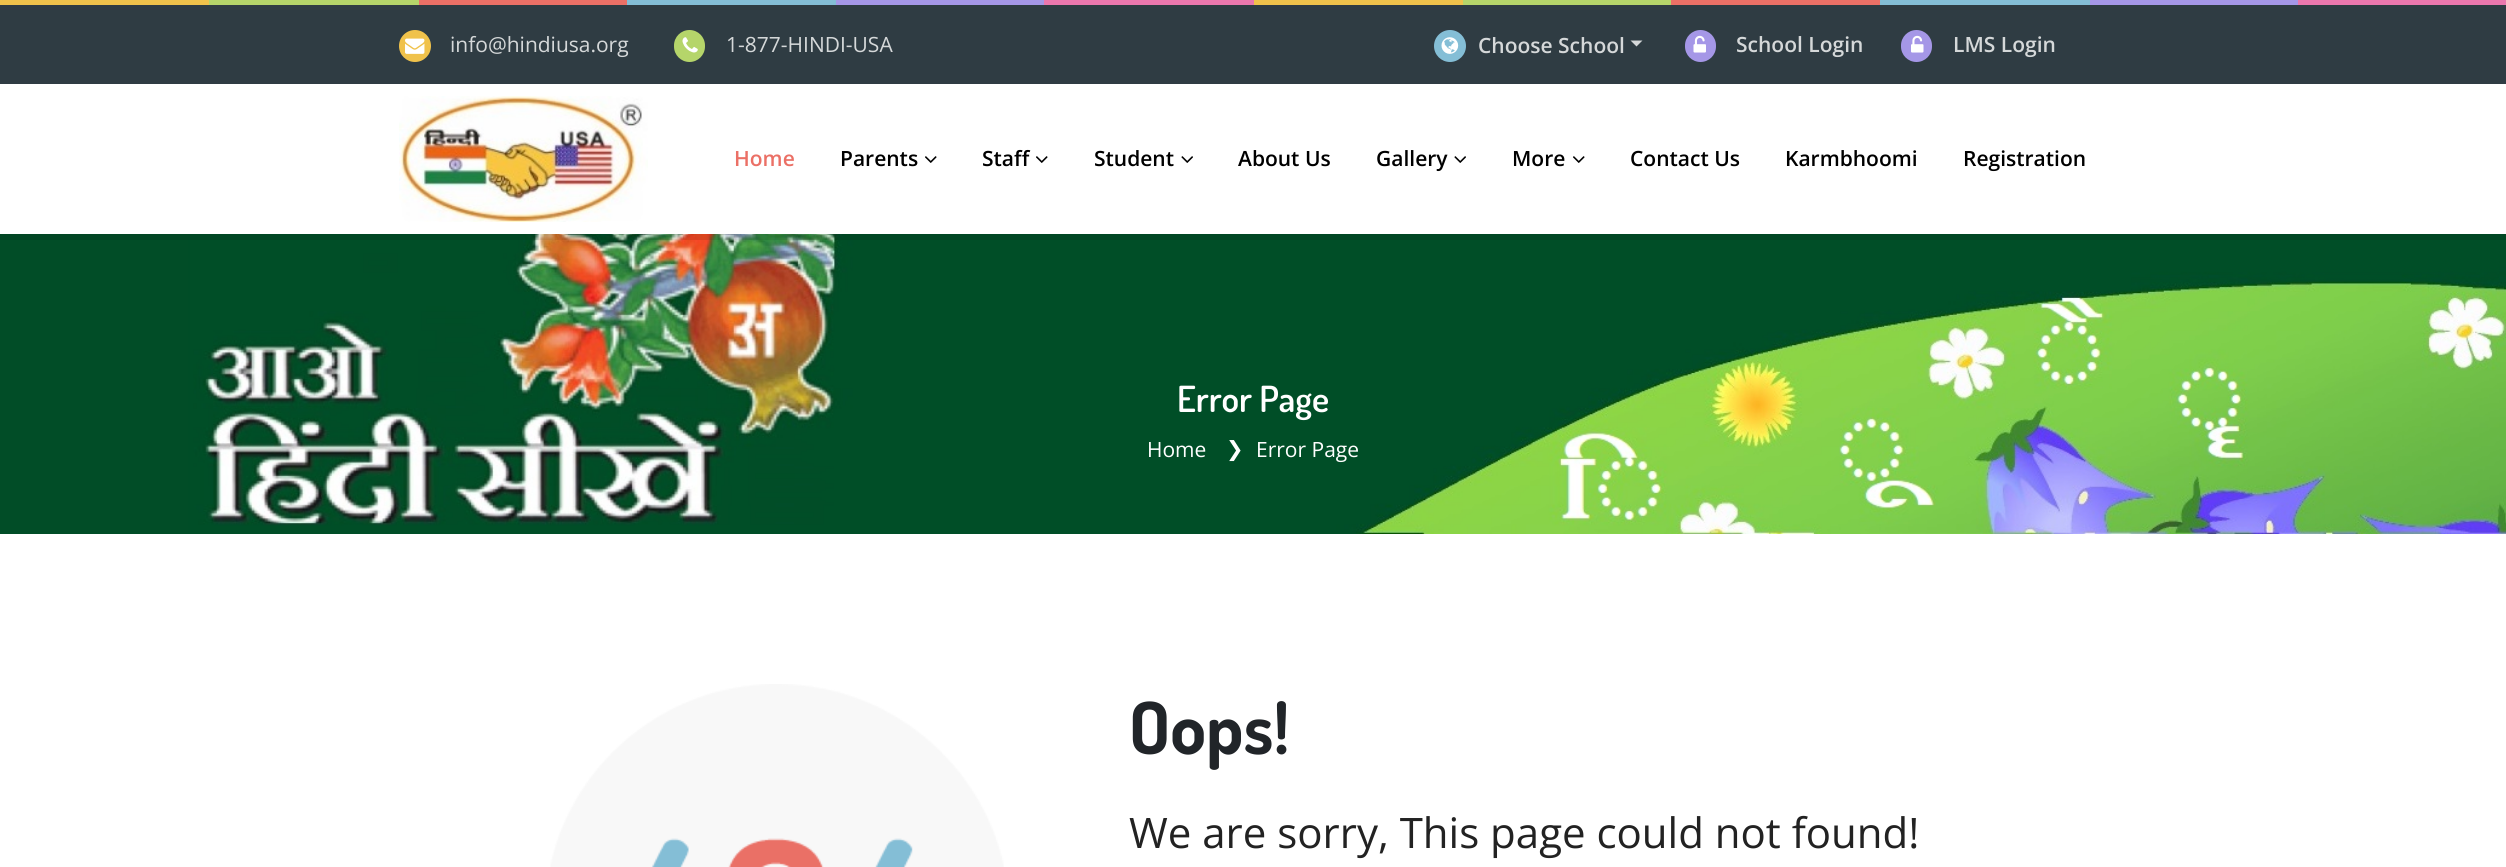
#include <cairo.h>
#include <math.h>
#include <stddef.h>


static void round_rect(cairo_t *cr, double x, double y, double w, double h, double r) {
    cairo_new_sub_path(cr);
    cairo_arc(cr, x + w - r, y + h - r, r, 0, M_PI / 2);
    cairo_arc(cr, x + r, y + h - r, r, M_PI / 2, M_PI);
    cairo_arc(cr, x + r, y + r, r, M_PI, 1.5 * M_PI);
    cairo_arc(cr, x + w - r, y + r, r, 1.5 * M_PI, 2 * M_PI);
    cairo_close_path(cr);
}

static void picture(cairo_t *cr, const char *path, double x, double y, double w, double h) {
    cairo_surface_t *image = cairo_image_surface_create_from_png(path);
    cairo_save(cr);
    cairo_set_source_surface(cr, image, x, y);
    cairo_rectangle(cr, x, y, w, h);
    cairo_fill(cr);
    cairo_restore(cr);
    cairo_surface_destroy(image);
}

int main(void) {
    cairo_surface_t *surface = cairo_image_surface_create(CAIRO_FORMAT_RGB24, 2506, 867);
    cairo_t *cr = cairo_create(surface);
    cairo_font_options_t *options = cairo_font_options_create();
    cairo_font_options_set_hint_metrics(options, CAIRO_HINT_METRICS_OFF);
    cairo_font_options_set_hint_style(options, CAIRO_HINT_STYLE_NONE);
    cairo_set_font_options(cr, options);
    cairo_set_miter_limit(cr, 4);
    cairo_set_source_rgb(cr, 1, 1, 1);
    cairo_paint(cr);
    cairo_set_source_rgb(cr, 0.941, 0.761, 0.294);
    cairo_rectangle(cr, 0, 0, 209, 5);
    cairo_fill(cr);
    cairo_set_source_rgb(cr, 0.71, 0.835, 0.416);
    cairo_rectangle(cr, 209, 0, 210, 5);
    cairo_fill(cr);
    cairo_set_source_rgb(cr, 0.918, 0.439, 0.4);
    cairo_rectangle(cr, 419, 0, 208, 5);
    cairo_fill(cr);
    cairo_set_source_rgb(cr, 0.518, 0.745, 0.839);
    cairo_rectangle(cr, 627, 0, 209, 5);
    cairo_fill(cr);
    cairo_set_source_rgb(cr, 0.647, 0.592, 0.906);
    cairo_rectangle(cr, 836, 0, 208, 5);
    cairo_fill(cr);
    cairo_set_source_rgb(cr, 0.918, 0.467, 0.678);
    cairo_rectangle(cr, 1044, 0, 210, 5);
    cairo_fill(cr);
    cairo_set_source_rgb(cr, 0.941, 0.761, 0.294);
    cairo_rectangle(cr, 1254, 0, 209, 5);
    cairo_fill(cr);
    cairo_set_source_rgb(cr, 0.71, 0.835, 0.416);
    cairo_rectangle(cr, 1463, 0, 208, 5);
    cairo_fill(cr);
    cairo_set_source_rgb(cr, 0.918, 0.439, 0.4);
    cairo_rectangle(cr, 1671, 0, 209, 5);
    cairo_fill(cr);
    cairo_set_source_rgb(cr, 0.518, 0.745, 0.839);
    cairo_rectangle(cr, 1880, 0, 210, 5);
    cairo_fill(cr);
    cairo_set_source_rgb(cr, 0.647, 0.592, 0.906);
    cairo_rectangle(cr, 2090, 0, 208, 5);
    cairo_fill(cr);
    cairo_set_source_rgb(cr, 0.918, 0.467, 0.678);
    cairo_rectangle(cr, 2298, 0, 208, 5);
    cairo_fill(cr);
    cairo_set_source_rgb(cr, 0.184, 0.235, 0.263);
    cairo_rectangle(cr, 0, 5, 2506, 79);
    cairo_fill(cr);
    cairo_set_source_rgb(cr, 0.941, 0.761, 0.294);
    cairo_arc(cr, 415, 46, 16, 0, 2 * M_PI);
    cairo_fill(cr);
    picture(cr, "img1.png", 405, 38, 20, 16);
    cairo_select_font_face(cr, "Open Sans", CAIRO_FONT_SLANT_NORMAL, CAIRO_FONT_WEIGHT_NORMAL);
    cairo_set_font_size(cr, 21);
    cairo_set_source_rgb(cr, 0.835, 0.847, 0.851);
    cairo_move_to(cr, 450, 52);
    cairo_show_text(cr, "info@hindiusa.org");
    cairo_set_source_rgb(cr, 0.71, 0.835, 0.416);
    round_rect(cr, 674, 30, 31, 32, 15.5);
    cairo_fill(cr);
    picture(cr, "img2.png", 682, 37, 16, 16);
    cairo_set_source_rgb(cr, 0.835, 0.847, 0.851);
    cairo_move_to(cr, 726, 52);
    cairo_show_text(cr, "1-877-HINDI-USA");
    cairo_set_source_rgb(cr, 0.518, 0.745, 0.839);
    cairo_new_path(cr);
    cairo_arc(cr, 1450, 46, 16, 0, 2 * M_PI);
    cairo_fill(cr);
    picture(cr, "img3.png", 1441, 37, 18, 17);
    cairo_select_font_face(cr, "Open Sans SemiBold", CAIRO_FONT_SLANT_NORMAL, CAIRO_FONT_WEIGHT_NORMAL);
    cairo_set_source_rgb(cr, 0.835, 0.847, 0.851);
    cairo_move_to(cr, 1478, 53);
    cairo_show_text(cr, "Choose School");
    cairo_new_path(cr);
    cairo_move_to(cr, 1630.5, 40.5);
    cairo_line_to(cr, 1642.5, 40.5);
    cairo_line_to(cr, 1636.5, 46.5);
    cairo_close_path(cr);
    cairo_fill(cr);
    cairo_set_source_rgb(cr, 0.647, 0.592, 0.906);
    round_rect(cr, 1685, 30, 31, 32, 15.5);
    cairo_fill(cr);
    picture(cr, "img4.png", 1693, 35, 13, 18);
    cairo_set_source_rgb(cr, 0.835, 0.847, 0.851);
    cairo_move_to(cr, 1736, 52);
    cairo_show_text(cr, "School Login");
    cairo_set_source_rgb(cr, 0.647, 0.592, 0.906);
    round_rect(cr, 1901, 30, 31, 32, 15.5);
    cairo_fill(cr);
    picture(cr, "img5.png", 1911, 35, 13, 18);
    cairo_set_source_rgb(cr, 0.835, 0.847, 0.851);
    cairo_move_to(cr, 1953, 52);
    cairo_show_text(cr, "LMS Login");
    picture(cr, "img9.png", 0, 234, 2506, 300);
    cairo_set_source_rgba(cr, 0, 0, 0, 0.1);
    cairo_new_path(cr);
    cairo_move_to(cr, 0, 234);
    cairo_line_to(cr, 0, 240);
    cairo_line_to(cr, 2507, 240);
    cairo_line_to(cr, 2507, 90);
    cairo_line_to(cr, 2506, 90);
    cairo_line_to(cr, 2506, 234);
    cairo_close_path(cr);
    cairo_fill(cr);
    picture(cr, "img6.png", 399, 96, 249, 126);
    cairo_set_source_rgb(cr, 0.918, 0.439, 0.4);
    cairo_move_to(cr, 734, 166);
    cairo_show_text(cr, "Home");
    cairo_set_source_rgb(cr, 0, 0, 0);
    cairo_move_to(cr, 840, 166);
    cairo_show_text(cr, "Parents");
    picture(cr, "img7.png", 925, 156, 12, 7);
    cairo_move_to(cr, 982, 166);
    cairo_show_text(cr, "Staff");
    picture(cr, "img7.png", 1036, 156, 12, 7);
    cairo_move_to(cr, 1094, 166);
    cairo_show_text(cr, "Student");
    picture(cr, "img8.png", 1181, 156, 12, 7);
    cairo_move_to(cr, 1238, 166);
    cairo_show_text(cr, "About Us");
    cairo_move_to(cr, 1376, 166);
    cairo_show_text(cr, "Gallery");
    picture(cr, "img8.png", 1454, 156, 12, 7);
    cairo_move_to(cr, 1512, 166);
    cairo_show_text(cr, "More");
    picture(cr, "img7.png", 1573, 156, 12, 7);
    cairo_move_to(cr, 1630, 166);
    cairo_show_text(cr, "Contact Us");
    cairo_move_to(cr, 1785, 166);
    cairo_show_text(cr, "Karmbhoomi");
    cairo_move_to(cr, 1963, 166);
    cairo_show_text(cr, "Registration");
    cairo_select_font_face(cr, "Dosis SemiBold", CAIRO_FONT_SLANT_NORMAL, CAIRO_FONT_WEIGHT_NORMAL);
    cairo_set_font_size(cr, 36);
    cairo_set_source_rgb(cr, 1, 1, 1);
    cairo_move_to(cr, 1177, 412);
    cairo_show_text(cr, "Error Page");
    cairo_select_font_face(cr, "Open Sans", CAIRO_FONT_SLANT_NORMAL, CAIRO_FONT_WEIGHT_NORMAL);
    cairo_set_font_size(cr, 21);
    cairo_move_to(cr, 1147, 457);
    cairo_show_text(cr, "Home");
    cairo_select_font_face(cr, "DejaVu Sans", CAIRO_FONT_SLANT_NORMAL, CAIRO_FONT_WEIGHT_NORMAL);
    cairo_move_to(cr, 1226, 456);
    cairo_show_text(cr, "❯");
    cairo_select_font_face(cr, "Open Sans", CAIRO_FONT_SLANT_NORMAL, CAIRO_FONT_WEIGHT_NORMAL);
    cairo_move_to(cr, 1256, 457);
    cairo_show_text(cr, "Error Page");
    picture(cr, "img10.png", 550, 684, 454, 183);
    cairo_select_font_face(cr, "Dosis", CAIRO_FONT_SLANT_NORMAL, CAIRO_FONT_WEIGHT_BOLD);
    cairo_set_font_size(cr, 72);
    cairo_set_source_rgb(cr, 0.129, 0.145, 0.161);
    cairo_move_to(cr, 1129, 754);
    cairo_show_text(cr, "Oops!");
    cairo_select_font_face(cr, "Open Sans", CAIRO_FONT_SLANT_NORMAL, CAIRO_FONT_WEIGHT_NORMAL);
    cairo_set_font_size(cr, 42);
    cairo_set_source_rgb(cr, 0.133, 0.133, 0.133);
    cairo_move_to(cr, 1129, 848);
    cairo_show_text(cr, "We are sorry, This page could not found!");
    cairo_surface_write_to_png(surface, "page.png");
    cairo_font_options_destroy(options);
    cairo_destroy(cr);
    cairo_surface_destroy(surface);
    return 0;
}
